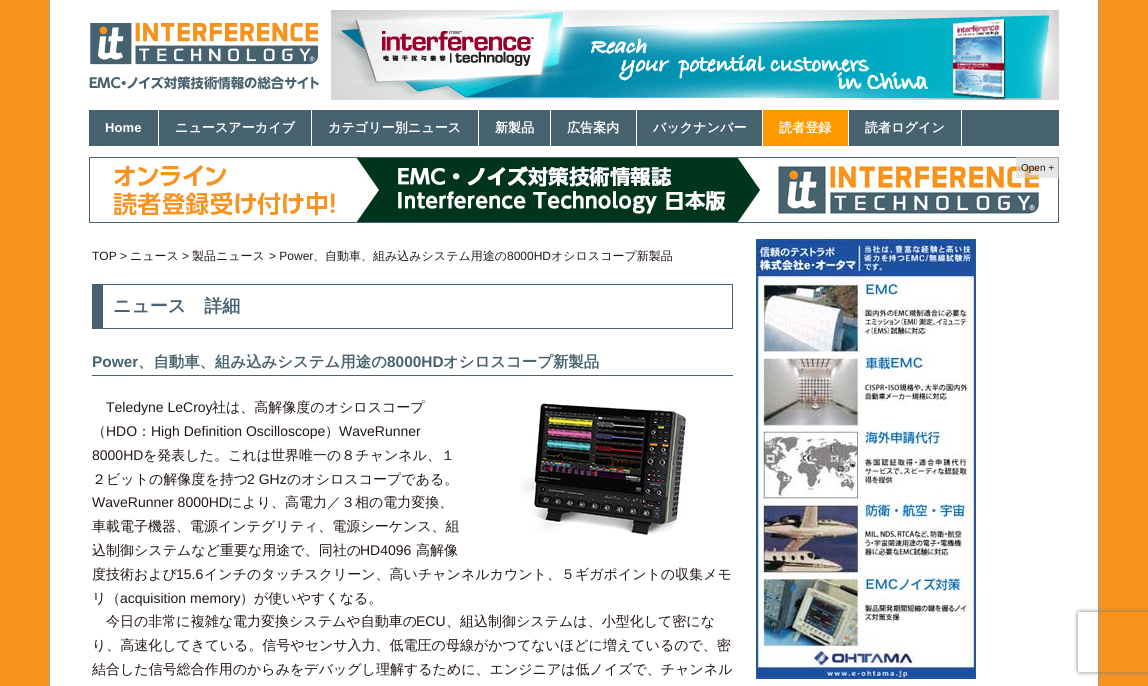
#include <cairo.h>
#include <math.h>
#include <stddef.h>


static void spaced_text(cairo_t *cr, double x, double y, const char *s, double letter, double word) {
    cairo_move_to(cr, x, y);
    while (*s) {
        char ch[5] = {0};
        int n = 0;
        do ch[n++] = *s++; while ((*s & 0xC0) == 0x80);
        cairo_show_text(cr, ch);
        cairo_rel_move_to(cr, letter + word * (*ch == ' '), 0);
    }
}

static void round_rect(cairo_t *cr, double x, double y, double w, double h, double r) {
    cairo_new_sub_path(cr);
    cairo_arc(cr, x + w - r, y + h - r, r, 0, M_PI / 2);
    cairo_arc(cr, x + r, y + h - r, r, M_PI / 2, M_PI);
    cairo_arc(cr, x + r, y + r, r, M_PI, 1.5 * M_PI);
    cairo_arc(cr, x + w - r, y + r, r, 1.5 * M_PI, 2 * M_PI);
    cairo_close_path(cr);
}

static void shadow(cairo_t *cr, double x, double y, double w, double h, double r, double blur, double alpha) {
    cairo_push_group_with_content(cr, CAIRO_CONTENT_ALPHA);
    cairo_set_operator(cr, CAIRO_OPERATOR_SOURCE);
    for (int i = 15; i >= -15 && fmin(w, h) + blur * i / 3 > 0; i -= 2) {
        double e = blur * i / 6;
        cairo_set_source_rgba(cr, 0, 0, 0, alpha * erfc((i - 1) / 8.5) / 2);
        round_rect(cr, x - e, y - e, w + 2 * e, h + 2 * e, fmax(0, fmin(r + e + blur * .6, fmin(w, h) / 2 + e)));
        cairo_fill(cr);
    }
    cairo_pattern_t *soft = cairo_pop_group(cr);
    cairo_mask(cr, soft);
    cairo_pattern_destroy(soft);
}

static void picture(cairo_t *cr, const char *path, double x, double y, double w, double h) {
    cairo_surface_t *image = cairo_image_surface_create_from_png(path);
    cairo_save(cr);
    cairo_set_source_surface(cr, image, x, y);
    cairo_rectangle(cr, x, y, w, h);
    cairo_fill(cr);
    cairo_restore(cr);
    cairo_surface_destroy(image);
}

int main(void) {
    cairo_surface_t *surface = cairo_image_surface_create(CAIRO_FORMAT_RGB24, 1148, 686);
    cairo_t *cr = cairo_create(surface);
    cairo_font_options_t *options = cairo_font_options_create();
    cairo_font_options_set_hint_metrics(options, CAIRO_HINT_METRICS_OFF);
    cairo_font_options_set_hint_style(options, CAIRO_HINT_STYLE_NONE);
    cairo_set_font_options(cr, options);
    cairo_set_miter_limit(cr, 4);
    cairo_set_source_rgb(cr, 0.969, 0.576, 0.114);
    cairo_paint(cr);
    cairo_set_source_rgb(cr, 1, 1, 1);
    cairo_rectangle(cr, 50, 0, 1048, 686);
    cairo_fill(cr);
    cairo_set_source_rgb(cr, 0.608, 0.608, 0.608);
    cairo_rectangle(cr, 1098, 0, 1, 686);
    cairo_fill(cr);
    cairo_rectangle(cr, 49, 0, 1, 686);
    cairo_fill(cr);
    picture(cr, "img1.png", 89, 23, 230, 67);
    picture(cr, "img2.png", 331, 10, 728, 90);
    cairo_set_source_rgb(cr, 0.282, 0.388, 0.439);
    cairo_rectangle(cr, 89, 110, 970, 36);
    cairo_fill(cr);
    cairo_set_source_rgb(cr, 1, 1, 1);
    cairo_rectangle(cr, 158, 110, 1, 36);
    cairo_fill(cr);
    cairo_select_font_face(cr, "Liberation Sans", CAIRO_FONT_SLANT_NORMAL, CAIRO_FONT_WEIGHT_BOLD);
    cairo_set_font_size(cr, 13);
    spaced_text(cr, 105, 132, "Home", 0.1, 0);
    cairo_rectangle(cr, 311, 110, 1, 36);
    cairo_fill(cr);
    cairo_select_font_face(cr, "WenQuanYi Zen Hei", CAIRO_FONT_SLANT_NORMAL, CAIRO_FONT_WEIGHT_BOLD);
    spaced_text(cr, 175, 132, "ニュースアーカイブ", 0.1, 0);
    cairo_rectangle(cr, 478, 110, 1, 36);
    cairo_fill(cr);
    spaced_text(cr, 328, 132, "カテゴリー別ニュース", 0.1, 0);
    cairo_rectangle(cr, 550, 110, 1, 36);
    cairo_fill(cr);
    spaced_text(cr, 495, 132, "新製品", 0.1, 0);
    cairo_rectangle(cr, 636, 110, 1, 36);
    cairo_fill(cr);
    spaced_text(cr, 567, 132, "広告案内", 0.1, 0);
    cairo_rectangle(cr, 762, 110, 1, 36);
    cairo_fill(cr);
    spaced_text(cr, 653, 132, "バックナンバー", 0.1, 0);
    cairo_set_source_rgb(cr, 1, 0.6, 0);
    cairo_rectangle(cr, 763, 110, 85, 36);
    cairo_fill(cr);
    cairo_set_source_rgb(cr, 1, 1, 1);
    cairo_rectangle(cr, 848, 110, 1, 36);
    cairo_fill(cr);
    spaced_text(cr, 779, 132, "読者登録", 0.1, 0);
    cairo_rectangle(cr, 961, 110, 1, 36);
    cairo_fill(cr);
    spaced_text(cr, 865, 132, "読者ログイン", 0.1, 0);
    picture(cr, "img3.png", 89, 157, 970, 66);
    cairo_set_source_rgba(cr, 0.843, 0.843, 0.843, 0.6);
    cairo_rectangle(cr, 1016, 157, 43, 21);
    cairo_fill(cr);
    cairo_select_font_face(cr, "Liberation Sans", CAIRO_FONT_SLANT_NORMAL, CAIRO_FONT_WEIGHT_NORMAL);
    cairo_set_font_size(cr, 10);
    cairo_set_source_rgb(cr, 0.137, 0.094, 0.082);
    cairo_move_to(cr, 1021, 171);
    cairo_show_text(cr, "Open +");
    cairo_set_font_size(cr, 12);
    cairo_move_to(cr, 92, 260);
    cairo_show_text(cr, "TOP >");
    cairo_select_font_face(cr, "WenQuanYi Zen Hei Medium", CAIRO_FONT_SLANT_NORMAL, CAIRO_FONT_WEIGHT_NORMAL);
    cairo_move_to(cr, 130, 260);
    cairo_show_text(cr, "ニュース");
    cairo_select_font_face(cr, "Liberation Sans", CAIRO_FONT_SLANT_NORMAL, CAIRO_FONT_WEIGHT_NORMAL);
    cairo_move_to(cr, 182, 260);
    cairo_show_text(cr, ">");
    cairo_select_font_face(cr, "WenQuanYi Zen Hei Medium", CAIRO_FONT_SLANT_NORMAL, CAIRO_FONT_WEIGHT_NORMAL);
    cairo_move_to(cr, 192, 260);
    cairo_show_text(cr, "製品ニュース");
    cairo_select_font_face(cr, "Liberation Sans", CAIRO_FONT_SLANT_NORMAL, CAIRO_FONT_WEIGHT_NORMAL);
    cairo_move_to(cr, 269, 260);
    cairo_show_text(cr, "> Power");
    cairo_select_font_face(cr, "WenQuanYi Zen Hei Medium", CAIRO_FONT_SLANT_NORMAL, CAIRO_FONT_WEIGHT_NORMAL);
    cairo_move_to(cr, 313, 260);
    cairo_show_text(cr, "、自動車、組み込みシステム用途の");
    cairo_select_font_face(cr, "Liberation Sans", CAIRO_FONT_SLANT_NORMAL, CAIRO_FONT_WEIGHT_NORMAL);
    cairo_move_to(cr, 507, 260);
    cairo_show_text(cr, "8000HD");
    cairo_select_font_face(cr, "WenQuanYi Zen Hei Medium", CAIRO_FONT_SLANT_NORMAL, CAIRO_FONT_WEIGHT_NORMAL);
    cairo_move_to(cr, 551, 260);
    cairo_show_text(cr, "オシロスコープ新製品");
    cairo_set_source_rgb(cr, 0.282, 0.388, 0.439);
    cairo_rectangle(cr, 103, 284, 630, 1);
    cairo_fill(cr);
    cairo_rectangle(cr, 732, 284, 1, 45);
    cairo_fill(cr);
    cairo_rectangle(cr, 103, 328, 630, 1);
    cairo_fill(cr);
    cairo_rectangle(cr, 92, 284, 11, 45);
    cairo_fill(cr);
    cairo_select_font_face(cr, "WenQuanYi Zen Hei", CAIRO_FONT_SLANT_NORMAL, CAIRO_FONT_WEIGHT_BOLD);
    cairo_set_font_size(cr, 18);
    cairo_move_to(cr, 113, 312);
    cairo_show_text(cr, "ニュース　詳細");
    cairo_rectangle(cr, 92, 375, 641, 1);
    cairo_fill(cr);
    cairo_select_font_face(cr, "Liberation Sans", CAIRO_FONT_SLANT_NORMAL, CAIRO_FONT_WEIGHT_BOLD);
    cairo_set_font_size(cr, 15.4);
    cairo_move_to(cr, 92, 367);
    cairo_show_text(cr, "Power");
    cairo_select_font_face(cr, "WenQuanYi Zen Hei", CAIRO_FONT_SLANT_NORMAL, CAIRO_FONT_WEIGHT_BOLD);
    cairo_move_to(cr, 138, 367);
    cairo_show_text(cr, "、自動車、組み込みシステム用途の");
    cairo_select_font_face(cr, "Liberation Sans", CAIRO_FONT_SLANT_NORMAL, CAIRO_FONT_WEIGHT_BOLD);
    cairo_move_to(cr, 387, 367);
    cairo_show_text(cr, "8000HD");
    cairo_select_font_face(cr, "WenQuanYi Zen Hei", CAIRO_FONT_SLANT_NORMAL, CAIRO_FONT_WEIGHT_BOLD);
    cairo_move_to(cr, 443, 367);
    cairo_show_text(cr, "オシロスコープ新製品");
    cairo_select_font_face(cr, "Liberation Sans", CAIRO_FONT_SLANT_NORMAL, CAIRO_FONT_WEIGHT_NORMAL);
    cairo_set_font_size(cr, 14);
    cairo_set_source_rgb(cr, 0.137, 0.094, 0.082);
    cairo_move_to(cr, 106, 412);
    cairo_show_text(cr, "Teledyne LeCroy");
    cairo_select_font_face(cr, "WenQuanYi Zen Hei Medium", CAIRO_FONT_SLANT_NORMAL, CAIRO_FONT_WEIGHT_NORMAL);
    cairo_move_to(cr, 212, 412);
    cairo_show_text(cr, "社は、高解像度のオシロスコープ");
    cairo_move_to(cr, 92, 436);
    cairo_show_text(cr, "（");
    cairo_select_font_face(cr, "Liberation Sans", CAIRO_FONT_SLANT_NORMAL, CAIRO_FONT_WEIGHT_NORMAL);
    cairo_move_to(cr, 106, 436);
    cairo_show_text(cr, "HDO");
    cairo_select_font_face(cr, "WenQuanYi Zen Hei Medium", CAIRO_FONT_SLANT_NORMAL, CAIRO_FONT_WEIGHT_NORMAL);
    cairo_move_to(cr, 137, 436);
    cairo_show_text(cr, "：");
    cairo_select_font_face(cr, "Liberation Sans", CAIRO_FONT_SLANT_NORMAL, CAIRO_FONT_WEIGHT_NORMAL);
    cairo_move_to(cr, 151, 436);
    cairo_show_text(cr, "High Definition Oscilloscope");
    cairo_select_font_face(cr, "WenQuanYi Zen Hei Medium", CAIRO_FONT_SLANT_NORMAL, CAIRO_FONT_WEIGHT_NORMAL);
    cairo_move_to(cr, 325, 436);
    cairo_show_text(cr, "）");
    cairo_select_font_face(cr, "Liberation Sans", CAIRO_FONT_SLANT_NORMAL, CAIRO_FONT_WEIGHT_NORMAL);
    cairo_move_to(cr, 339, 436);
    cairo_show_text(cr, "WaveRunner");
    cairo_move_to(cr, 92, 460);
    cairo_show_text(cr, "8000HD");
    cairo_select_font_face(cr, "WenQuanYi Zen Hei Medium", CAIRO_FONT_SLANT_NORMAL, CAIRO_FONT_WEIGHT_NORMAL);
    cairo_move_to(cr, 143, 460);
    cairo_show_text(cr, "を発表した。これは世界唯一の８チャンネル、１");
    cairo_move_to(cr, 92, 484);
    cairo_show_text(cr, "２ビットの解像度を持つ");
    cairo_select_font_face(cr, "Liberation Sans", CAIRO_FONT_SLANT_NORMAL, CAIRO_FONT_WEIGHT_NORMAL);
    cairo_move_to(cr, 247, 484);
    cairo_show_text(cr, "2 GHz");
    cairo_select_font_face(cr, "WenQuanYi Zen Hei Medium", CAIRO_FONT_SLANT_NORMAL, CAIRO_FONT_WEIGHT_NORMAL);
    cairo_move_to(cr, 287, 484);
    cairo_show_text(cr, "のオシロスコープである。");
    cairo_select_font_face(cr, "Liberation Sans", CAIRO_FONT_SLANT_NORMAL, CAIRO_FONT_WEIGHT_NORMAL);
    cairo_move_to(cr, 92, 507);
    cairo_show_text(cr, "WaveRunner 8000HD");
    cairo_select_font_face(cr, "WenQuanYi Zen Hei Medium", CAIRO_FONT_SLANT_NORMAL, CAIRO_FONT_WEIGHT_NORMAL);
    cairo_move_to(cr, 228, 507);
    cairo_show_text(cr, "により、高電力／３相の電力変換、");
    cairo_move_to(cr, 92, 531);
    cairo_show_text(cr, "車載電子機器、電源インテグリティ、電源シーケンス、組");
    cairo_move_to(cr, 92, 555);
    cairo_show_text(cr, "込制御システムなど重要な用途で、同社の");
    cairo_select_font_face(cr, "Liberation Sans", CAIRO_FONT_SLANT_NORMAL, CAIRO_FONT_WEIGHT_NORMAL);
    cairo_move_to(cr, 360, 555);
    cairo_show_text(cr, "HD4096");
    cairo_select_font_face(cr, "WenQuanYi Zen Hei Medium", CAIRO_FONT_SLANT_NORMAL, CAIRO_FONT_WEIGHT_NORMAL);
    cairo_move_to(cr, 416, 555);
    cairo_show_text(cr, "高解像");
    cairo_move_to(cr, 92, 579);
    cairo_show_text(cr, "度技術および");
    cairo_select_font_face(cr, "Liberation Sans", CAIRO_FONT_SLANT_NORMAL, CAIRO_FONT_WEIGHT_NORMAL);
    cairo_move_to(cr, 176, 579);
    cairo_show_text(cr, "15.6");
    cairo_select_font_face(cr, "WenQuanYi Zen Hei Medium", CAIRO_FONT_SLANT_NORMAL, CAIRO_FONT_WEIGHT_NORMAL);
    cairo_move_to(cr, 204, 579);
    cairo_show_text(cr, "インチのタッチスクリーン、高いチャンネルカウント、５ギガポイントの収集メモ");
    cairo_move_to(cr, 92, 603);
    cairo_show_text(cr, "リ（");
    cairo_select_font_face(cr, "Liberation Sans", CAIRO_FONT_SLANT_NORMAL, CAIRO_FONT_WEIGHT_NORMAL);
    cairo_move_to(cr, 120, 603);
    cairo_show_text(cr, "acquisition memory");
    cairo_select_font_face(cr, "WenQuanYi Zen Hei Medium", CAIRO_FONT_SLANT_NORMAL, CAIRO_FONT_WEIGHT_NORMAL);
    cairo_move_to(cr, 240, 603);
    cairo_show_text(cr, "）が使いやすくなる。");
    cairo_move_to(cr, 106, 626);
    cairo_show_text(cr, "今日の非常に複雑な電力変換システムや自動車の");
    cairo_select_font_face(cr, "Liberation Sans", CAIRO_FONT_SLANT_NORMAL, CAIRO_FONT_WEIGHT_NORMAL);
    cairo_move_to(cr, 416, 626);
    cairo_show_text(cr, "ECU");
    cairo_select_font_face(cr, "WenQuanYi Zen Hei Medium", CAIRO_FONT_SLANT_NORMAL, CAIRO_FONT_WEIGHT_NORMAL);
    cairo_move_to(cr, 446, 626);
    cairo_show_text(cr, "、組込制御システムは、小型化して密にな");
    cairo_move_to(cr, 92, 650);
    cairo_show_text(cr, "り、高速化してきている。信号やセンサ入力、低電圧の母線がかつてないほどに増えているので、密");
    cairo_move_to(cr, 92, 674);
    cairo_show_text(cr, "結合した信号総合作用のからみをデバッグし理解するために、エンジニアは低ノイズで、チャンネル");
    picture(cr, "img4.png", 520, 403, 169, 132);
    picture(cr, "img5.png", 756, 239, 220, 440);
    cairo_save(cr);
    cairo_set_fill_rule(cr, CAIRO_FILL_RULE_EVEN_ODD);
    cairo_new_path(cr);
    cairo_move_to(cr, 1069, 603);
    cairo_line_to(cr, 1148, 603);
    cairo_line_to(cr, 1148, 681);
    cairo_line_to(cr, 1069, 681);
    cairo_close_path(cr);
    cairo_move_to(cr, 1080, 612);
    cairo_line_to(cr, 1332, 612);
    cairo_curve_to(cr, 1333, 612, 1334, 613, 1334, 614);
    cairo_line_to(cr, 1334, 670);
    cairo_curve_to(cr, 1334, 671, 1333, 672, 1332, 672);
    cairo_line_to(cr, 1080, 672);
    cairo_curve_to(cr, 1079, 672, 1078, 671, 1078, 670);
    cairo_line_to(cr, 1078, 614);
    cairo_curve_to(cr, 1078, 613, 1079, 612, 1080, 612);
    cairo_close_path(cr);
    cairo_clip(cr);
    cairo_set_source_rgb(cr, 0.502, 0.502, 0.502);
    shadow(cr, 1078, 612, 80, 60, 2, 2.5, 1);
    cairo_restore(cr);
    cairo_surface_write_to_png(surface, "page.png");
    cairo_font_options_destroy(options);
    cairo_destroy(cr);
    cairo_surface_destroy(surface);
    return 0;
}
